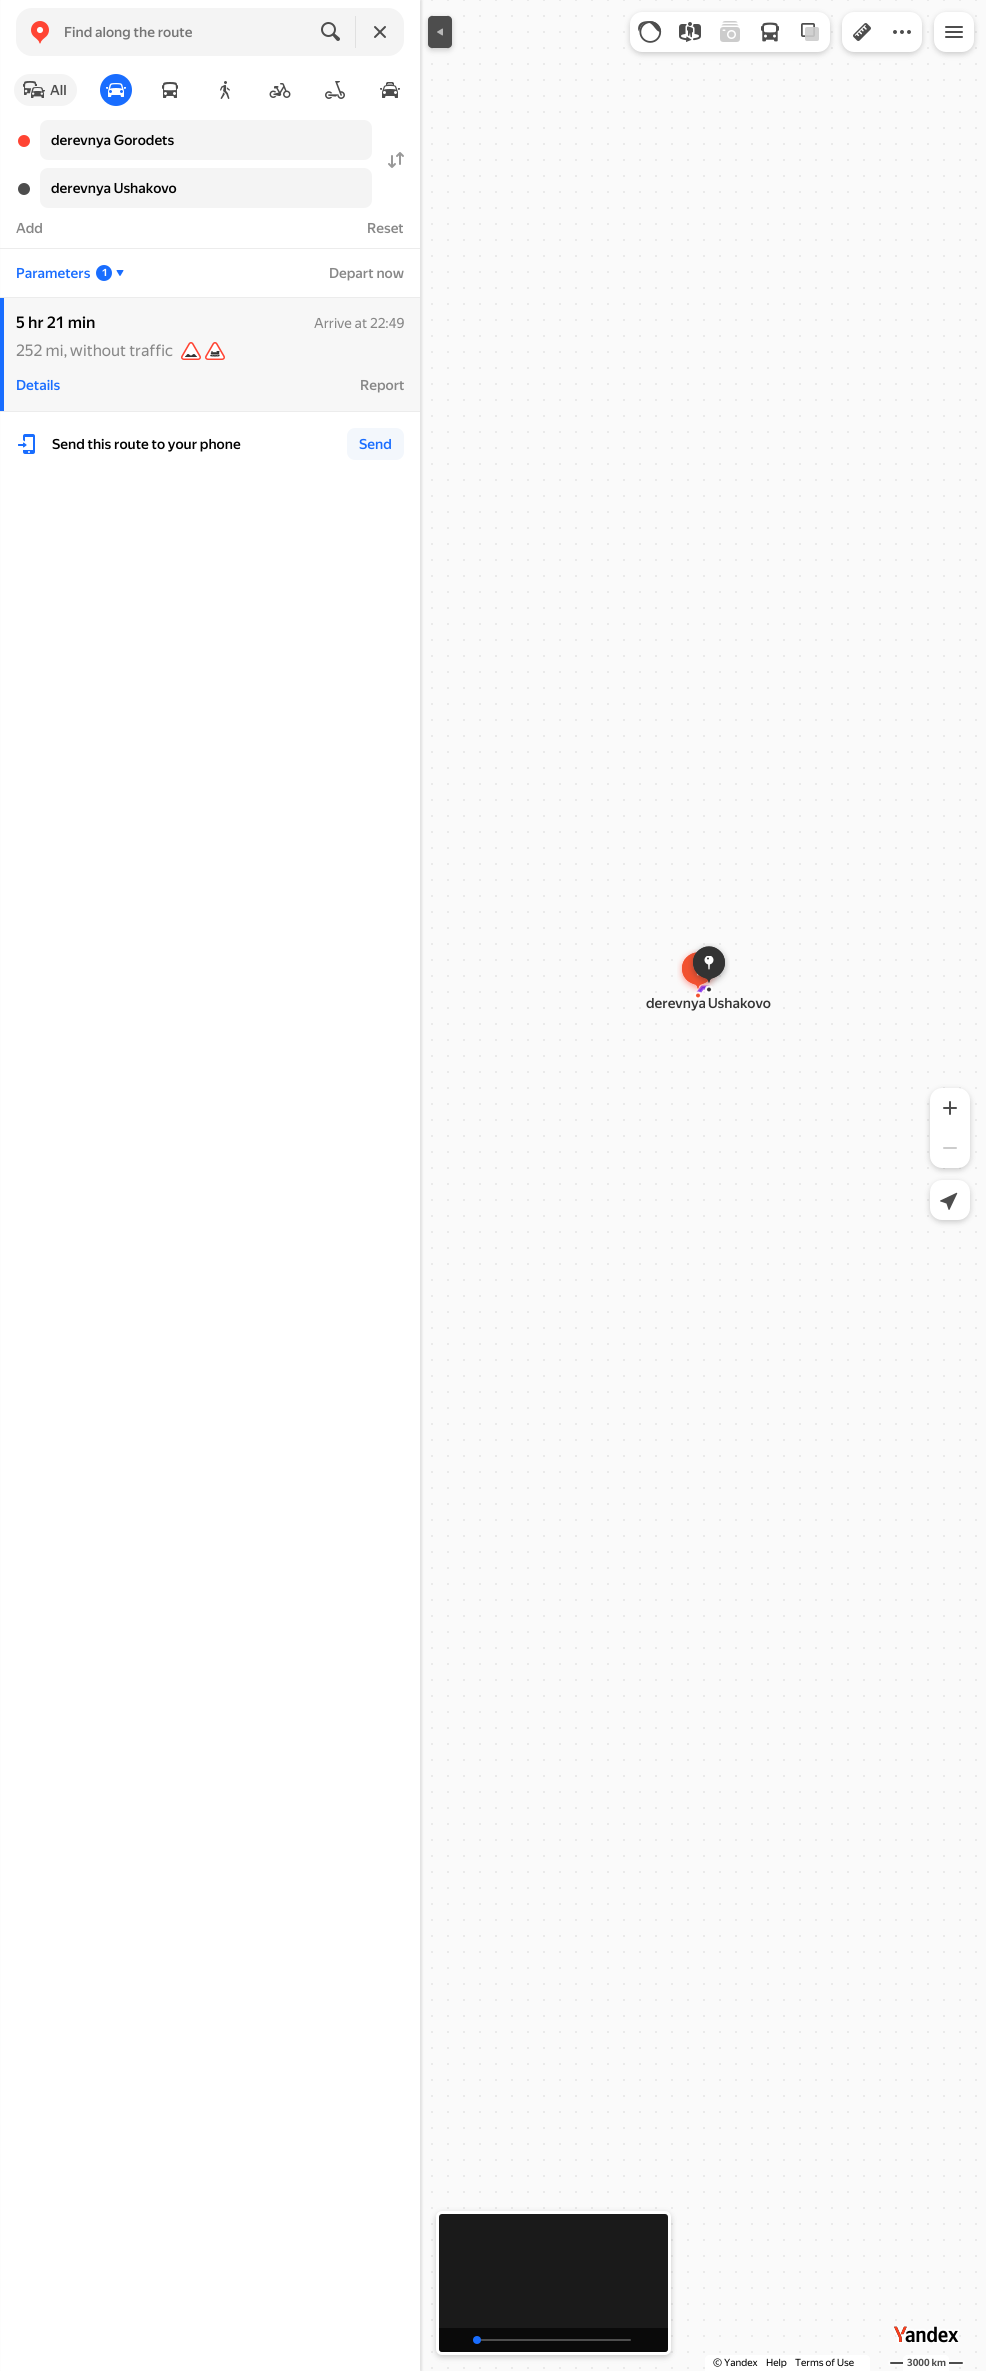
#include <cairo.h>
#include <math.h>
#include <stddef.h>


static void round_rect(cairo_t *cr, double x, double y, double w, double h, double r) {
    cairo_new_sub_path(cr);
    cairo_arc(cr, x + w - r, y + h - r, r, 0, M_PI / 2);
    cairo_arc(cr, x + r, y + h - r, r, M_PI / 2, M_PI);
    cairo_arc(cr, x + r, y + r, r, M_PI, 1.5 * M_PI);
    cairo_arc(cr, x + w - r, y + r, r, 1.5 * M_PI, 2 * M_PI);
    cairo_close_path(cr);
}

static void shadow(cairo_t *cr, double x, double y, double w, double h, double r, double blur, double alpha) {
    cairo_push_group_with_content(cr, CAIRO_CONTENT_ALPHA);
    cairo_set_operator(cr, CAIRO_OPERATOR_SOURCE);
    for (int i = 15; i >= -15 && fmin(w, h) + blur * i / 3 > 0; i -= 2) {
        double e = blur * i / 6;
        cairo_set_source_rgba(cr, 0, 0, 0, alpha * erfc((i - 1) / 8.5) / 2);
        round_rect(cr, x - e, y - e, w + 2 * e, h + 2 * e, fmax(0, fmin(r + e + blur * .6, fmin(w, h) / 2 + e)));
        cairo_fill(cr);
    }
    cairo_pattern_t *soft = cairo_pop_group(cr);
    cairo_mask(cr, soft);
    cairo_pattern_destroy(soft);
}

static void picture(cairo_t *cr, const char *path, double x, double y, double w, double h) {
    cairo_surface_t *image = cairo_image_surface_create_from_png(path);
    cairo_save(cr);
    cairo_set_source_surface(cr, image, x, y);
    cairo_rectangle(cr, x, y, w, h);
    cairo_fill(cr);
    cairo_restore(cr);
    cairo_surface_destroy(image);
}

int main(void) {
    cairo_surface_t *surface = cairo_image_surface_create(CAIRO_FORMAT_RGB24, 986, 2371);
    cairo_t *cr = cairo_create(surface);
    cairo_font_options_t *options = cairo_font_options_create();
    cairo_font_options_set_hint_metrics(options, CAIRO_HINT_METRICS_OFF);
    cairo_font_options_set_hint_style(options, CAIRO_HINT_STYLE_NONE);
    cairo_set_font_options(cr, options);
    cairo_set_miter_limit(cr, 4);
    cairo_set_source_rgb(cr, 1, 1, 1);
    cairo_paint(cr);
    picture(cr, "img1.png", 420, 0, 566, 2371);
    cairo_set_source_rgb(cr, 0, 0, 0);
    shadow(cr, 2, 0, 420, 2371, 0, 1, 0.1);
    shadow(cr, 428, 18, 24, 32, 4, 3, 0.2);
    cairo_set_source_rgb(cr, 1, 1, 1);
    cairo_rectangle(cr, 1, 0, 419, 2371);
    cairo_fill(cr);
    cairo_set_source_rgb(cr, 0.957, 0.957, 0.957);
    round_rect(cr, 16, 8, 388, 48, 16);
    cairo_fill(cr);
    picture(cr, "img2.png", 31, 21, 18, 23);
    cairo_select_font_face(cr, "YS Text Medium", CAIRO_FONT_SLANT_NORMAL, CAIRO_FONT_WEIGHT_NORMAL);
    cairo_set_font_size(cr, 14);
    cairo_set_source_rgb(cr, 0.459, 0.459, 0.459);
    cairo_move_to(cr, 64, 37);
    cairo_show_text(cr, "Find along the route");
    picture(cr, "img3.png", 321, 22, 19, 19);
    cairo_set_source_rgb(cr, 0.878, 0.878, 0.878);
    cairo_rectangle(cr, 355, 16, 1, 32);
    cairo_fill(cr);
    picture(cr, "img4.png", 374, 26, 12, 12);
    cairo_set_source_rgb(cr, 0, 0, 0);
    shadow(cr, 630, 14, 200, 40, 12, 3, 0.2);
    cairo_set_source_rgb(cr, 1, 1, 1);
    cairo_new_path(cr);
    cairo_move_to(cr, 642, 12);
    cairo_line_to(cr, 670, 12);
    cairo_line_to(cr, 670, 52);
    cairo_line_to(cr, 642, 52);
    cairo_curve_to(cr, 635.5, 52, 630, 46.5, 630, 40);
    cairo_line_to(cr, 630, 24);
    cairo_curve_to(cr, 630, 17.5, 635.5, 12, 642, 12);
    cairo_close_path(cr);
    cairo_fill(cr);
    picture(cr, "img5.png", 638, 21, 24, 22);
    cairo_rectangle(cr, 670, 12, 120, 40);
    cairo_fill(cr);
    picture(cr, "img6.png", 679, 22, 22, 20);
    cairo_new_path(cr);
    cairo_move_to(cr, 790, 12);
    cairo_line_to(cr, 818, 12);
    cairo_curve_to(cr, 824.5, 12, 830, 17.5, 830, 24);
    cairo_line_to(cr, 830, 40);
    cairo_curve_to(cr, 830, 46.5, 824.5, 52, 818, 52);
    cairo_line_to(cr, 790, 52);
    cairo_close_path(cr);
    cairo_fill(cr);
    picture(cr, "img7.png", 801, 23, 18, 18);
    picture(cr, "img8.png", 720, 21, 20, 21);
    picture(cr, "img9.png", 761, 22, 18, 20);
    cairo_set_source_rgb(cr, 0, 0, 0);
    shadow(cr, 842, 14, 80, 40, 12, 3, 0.2);
    cairo_set_source_rgb(cr, 1, 1, 1);
    cairo_new_path(cr);
    cairo_move_to(cr, 854, 12);
    cairo_line_to(cr, 882, 12);
    cairo_line_to(cr, 882, 52);
    cairo_line_to(cr, 854, 52);
    cairo_curve_to(cr, 847.5, 52, 842, 46.5, 842, 40);
    cairo_line_to(cr, 842, 24);
    cairo_curve_to(cr, 842, 17.5, 847.5, 12, 854, 12);
    cairo_close_path(cr);
    cairo_fill(cr);
    picture(cr, "img10.png", 853, 23, 18, 18);
    cairo_new_path(cr);
    cairo_move_to(cr, 882, 12);
    cairo_line_to(cr, 910, 12);
    cairo_curve_to(cr, 916.5, 12, 922, 17.5, 922, 24);
    cairo_line_to(cr, 922, 40);
    cairo_curve_to(cr, 922, 46.5, 916.5, 52, 910, 52);
    cairo_line_to(cr, 882, 52);
    cairo_close_path(cr);
    cairo_fill(cr);
    picture(cr, "img11.png", 893, 30, 18, 4);
    cairo_set_source_rgb(cr, 0, 0, 0);
    shadow(cr, 934, 14, 40, 40, 12, 3, 0.2);
    cairo_set_source_rgb(cr, 1, 1, 1);
    round_rect(cr, 934, 12, 40, 40, 12);
    cairo_fill(cr);
    picture(cr, "img12.png", 945, 26, 18, 12);
    cairo_set_source_rgb(cr, 0, 0, 0);
    shadow(cr, 930, 1090, 40, 80, 12, 3, 0.2);
    cairo_set_source_rgb(cr, 1, 1, 1);
    cairo_new_path(cr);
    cairo_move_to(cr, 942, 1088);
    cairo_line_to(cr, 958, 1088);
    cairo_curve_to(cr, 964.5, 1088, 970, 1093.5, 970, 1100);
    cairo_line_to(cr, 970, 1128);
    cairo_line_to(cr, 930, 1128);
    cairo_line_to(cr, 930, 1100);
    cairo_curve_to(cr, 930, 1093.5, 935.5, 1088, 942, 1088);
    cairo_close_path(cr);
    cairo_fill(cr);
    picture(cr, "img13.png", 943, 1101, 14, 14);
    cairo_new_path(cr);
    cairo_move_to(cr, 930, 1128);
    cairo_line_to(cr, 970, 1128);
    cairo_line_to(cr, 970, 1156);
    cairo_curve_to(cr, 970, 1162.5, 964.5, 1168, 958, 1168);
    cairo_line_to(cr, 942, 1168);
    cairo_curve_to(cr, 935.5, 1168, 930, 1162.5, 930, 1156);
    cairo_close_path(cr);
    cairo_fill(cr);
    picture(cr, "img14.png", 943, 1147, 14, 2);
    cairo_set_source_rgb(cr, 0, 0, 0);
    shadow(cr, 930, 1182, 40, 40, 12, 3, 0.2);
    cairo_set_source_rgb(cr, 1, 1, 1);
    round_rect(cr, 930, 1180, 40, 40, 12);
    cairo_fill(cr);
    picture(cr, "img15.png", 940, 1192, 18, 18);
    cairo_set_source_rgb(cr, 0.302, 0.302, 0.302);
    round_rect(cr, 428, 16, 24, 32, 4);
    cairo_fill(cr);
    picture(cr, "img16.png", 437, 28, 6, 8);
    cairo_set_source_rgb(cr, 0.957, 0.957, 0.957);
    round_rect(cr, 14, 74, 63, 32, 16);
    cairo_fill(cr);
    picture(cr, "img17.png", 23, 81, 22, 17);
    cairo_set_source_rgb(cr, 0.302, 0.302, 0.302);
    cairo_move_to(cr, 50, 95);
    cairo_show_text(cr, "All");
    cairo_set_source_rgb(cr, 0.098, 0.427, 1);
    cairo_new_path(cr);
    cairo_arc(cr, 116, 90, 16, 0, 2 * M_PI);
    cairo_fill(cr);
    picture(cr, "img18.png", 106, 83, 20, 14);
    picture(cr, "img19.png", 162, 82, 16, 16);
    picture(cr, "img20.png", 220, 81, 10, 18);
    picture(cr, "img21.png", 269, 83, 22, 15);
    picture(cr, "img22.png", 325, 81, 20, 18);
    picture(cr, "img23.png", 380, 82, 20, 16);
    cairo_set_source_rgb(cr, 1, 0.267, 0.2);
    cairo_arc(cr, 24, 141, 6, 0, 2 * M_PI);
    cairo_fill(cr);
    cairo_set_source_rgb(cr, 0.957, 0.957, 0.957);
    round_rect(cr, 40, 120, 332, 40, 8);
    cairo_fill(cr);
    cairo_set_source_rgb(cr, 0, 0, 0);
    cairo_move_to(cr, 51, 145);
    cairo_show_text(cr, "derevnya Gorodets");
    cairo_set_source_rgb(cr, 0.302, 0.302, 0.302);
    cairo_new_path(cr);
    cairo_arc(cr, 24, 189, 6, 0, 2 * M_PI);
    cairo_fill(cr);
    cairo_set_source_rgb(cr, 0.957, 0.957, 0.957);
    round_rect(cr, 40, 168, 332, 40, 8);
    cairo_fill(cr);
    cairo_set_source_rgb(cr, 0, 0, 0);
    cairo_move_to(cr, 51, 193);
    cairo_show_text(cr, "derevnya Ushakovo");
    picture(cr, "img24.png", 388, 152, 16, 16);
    cairo_set_source_rgb(cr, 0.529, 0.529, 0.529);
    cairo_move_to(cr, 16, 233);
    cairo_show_text(cr, "Add");
    cairo_move_to(cr, 367, 233);
    cairo_show_text(cr, "Reset");
    cairo_set_source_rgb(cr, 0.922, 0.922, 0.922);
    cairo_rectangle(cr, 0, 248, 420, 1);
    cairo_fill(cr);
    cairo_set_source_rgb(cr, 0.098, 0.427, 1);
    cairo_move_to(cr, 16, 278);
    cairo_show_text(cr, "Parameters");
    cairo_new_path(cr);
    cairo_arc(cr, 104, 273, 8, 0, 2 * M_PI);
    cairo_fill(cr);
    cairo_select_font_face(cr, "YS Text", CAIRO_FONT_SLANT_NORMAL, CAIRO_FONT_WEIGHT_BOLD);
    cairo_set_font_size(cr, 10);
    cairo_set_source_rgb(cr, 1, 1, 1);
    cairo_move_to(cr, 102, 276);
    cairo_show_text(cr, "1");
    picture(cr, "img25.png", 116, 270, 8, 6);
    cairo_select_font_face(cr, "YS Text Medium", CAIRO_FONT_SLANT_NORMAL, CAIRO_FONT_WEIGHT_NORMAL);
    cairo_set_font_size(cr, 14);
    cairo_set_source_rgb(cr, 0.529, 0.529, 0.529);
    cairo_move_to(cr, 329, 278);
    cairo_show_text(cr, "Depart now");
    cairo_set_source_rgb(cr, 0.965, 0.965, 0.965);
    cairo_rectangle(cr, 4, 298, 416, 113);
    cairo_fill(cr);
    cairo_set_source_rgb(cr, 0.098, 0.427, 1);
    cairo_rectangle(cr, 0, 297, 4, 114);
    cairo_fill(cr);
    cairo_set_source_rgb(cr, 0.922, 0.922, 0.922);
    cairo_rectangle(cr, 0, 297, 420, 1);
    cairo_fill(cr);
    cairo_set_font_size(cr, 16);
    cairo_set_source_rgb(cr, 0, 0, 0);
    cairo_move_to(cr, 16, 328);
    cairo_show_text(cr, "5 hr 21 min");
    cairo_select_font_face(cr, "YS Text", CAIRO_FONT_SLANT_NORMAL, CAIRO_FONT_WEIGHT_NORMAL);
    cairo_set_font_size(cr, 14);
    cairo_set_source_rgb(cr, 0.529, 0.529, 0.529);
    cairo_move_to(cr, 314, 328);
    cairo_show_text(cr, "Arrive at 22:49");
    cairo_set_font_size(cr, 16);
    cairo_move_to(cr, 16, 356);
    cairo_show_text(cr, "252 mi,");
    cairo_select_font_face(cr, "Noto Sans", CAIRO_FONT_SLANT_NORMAL, CAIRO_FONT_WEIGHT_NORMAL);
    cairo_move_to(cr, 70, 356);
    cairo_show_text(cr, "w");
    cairo_select_font_face(cr, "YS Text", CAIRO_FONT_SLANT_NORMAL, CAIRO_FONT_WEIGHT_NORMAL);
    cairo_move_to(cr, 83, 356);
    cairo_show_text(cr, "ithout traffic");
    picture(cr, "img26.png", 181, 342, 20, 18);
    picture(cr, "img27.png", 205, 342, 20, 18);
    cairo_select_font_face(cr, "YS Text Medium", CAIRO_FONT_SLANT_NORMAL, CAIRO_FONT_WEIGHT_NORMAL);
    cairo_set_font_size(cr, 14);
    cairo_set_source_rgb(cr, 0.098, 0.427, 1);
    cairo_move_to(cr, 16, 390);
    cairo_show_text(cr, "Details");
    cairo_set_source_rgb(cr, 0.529, 0.529, 0.529);
    cairo_move_to(cr, 360, 390);
    cairo_show_text(cr, "Report");
    cairo_set_source_rgb(cr, 0.922, 0.922, 0.922);
    cairo_rectangle(cr, 0, 411, 420, 1);
    cairo_fill(cr);
    picture(cr, "img28.png", 18, 434, 17, 20);
    cairo_set_source_rgb(cr, 0, 0, 0);
    cairo_move_to(cr, 52, 449);
    cairo_show_text(cr, "Send this route to your phone");
    cairo_set_source_rgb(cr, 0.953, 0.965, 0.988);
    round_rect(cr, 347, 428, 57, 32, 8);
    cairo_fill(cr);
    cairo_set_source_rgb(cr, 0.098, 0.427, 1);
    cairo_move_to(cr, 359, 449);
    cairo_show_text(cr, "Send");
    picture(cr, "img29.png", 894, 2326, 65, 17);
    cairo_set_source_rgb(cr, 1, 1, 1);
    cairo_new_path(cr);
    cairo_move_to(cr, 709, 2355);
    cairo_line_to(cr, 866, 2355);
    cairo_curve_to(cr, 868, 2355, 870, 2357, 870, 2359);
    cairo_line_to(cr, 870, 2371);
    cairo_line_to(cr, 705, 2371);
    cairo_line_to(cr, 705, 2359);
    cairo_curve_to(cr, 705, 2357, 707, 2355, 709, 2355);
    cairo_close_path(cr);
    cairo_fill(cr);
    cairo_select_font_face(cr, "YS Text", CAIRO_FONT_SLANT_NORMAL, CAIRO_FONT_WEIGHT_NORMAL);
    cairo_set_font_size(cr, 10);
    cairo_set_source_rgb(cr, 0, 0, 0);
    cairo_move_to(cr, 713, 2366);
    cairo_show_text(cr, "© Yandex");
    cairo_move_to(cr, 766, 2366);
    cairo_show_text(cr, "Help");
    cairo_move_to(cr, 795, 2366);
    cairo_show_text(cr, "Terms of Use");
    cairo_set_source_rgb(cr, 0.992, 0.992, 0.992);
    round_rect(cr, 888, 2360, 77, 6, 3);
    cairo_fill(cr);
    cairo_set_source_rgb(cr, 0.302, 0.302, 0.302);
    round_rect(cr, 890, 2362, 73, 2, 1);
    cairo_fill(cr);
    cairo_set_source_rgb(cr, 1, 1, 1);
    cairo_new_path(cr);
    cairo_move_to(cr, 907, 2355);
    cairo_line_to(cr, 945, 2355);
    cairo_curve_to(cr, 947, 2355, 949, 2357, 949, 2359);
    cairo_line_to(cr, 949, 2371);
    cairo_line_to(cr, 903, 2371);
    cairo_line_to(cr, 903, 2359);
    cairo_curve_to(cr, 903, 2357, 905, 2355, 907, 2355);
    cairo_close_path(cr);
    cairo_fill(cr);
    cairo_select_font_face(cr, "YS Text", CAIRO_FONT_SLANT_NORMAL, CAIRO_FONT_WEIGHT_BOLD);
    cairo_set_source_rgb(cr, 0.302, 0.302, 0.302);
    cairo_move_to(cr, 907, 2366);
    cairo_show_text(cr, "3000 km");
    cairo_new_path(cr);
    cairo_move_to(cr, 698, 993.5);
    cairo_line_to(cr, 702.5, 987.5);
    cairo_line_to(cr, 708.5, 987.5);
    cairo_set_source_rgba(cr, 1, 1, 1, 0.7);
    cairo_set_line_width(cr, 8);
    cairo_set_line_cap(cr, CAIRO_LINE_CAP_ROUND);
    cairo_set_line_join(cr, CAIRO_LINE_JOIN_ROUND);
    cairo_stroke(cr);
    cairo_new_path(cr);
    cairo_move_to(cr, 698, 993.5);
    cairo_line_to(cr, 702.5, 987.5);
    cairo_line_to(cr, 708.5, 987.5);
    cairo_set_source_rgb(cr, 0.298, 0.576, 1);
    cairo_set_line_width(cr, 1);
    cairo_stroke(cr);
    cairo_new_path(cr);
    cairo_move_to(cr, 698, 993.5);
    cairo_line_to(cr, 702.5, 987.5);
    cairo_line_to(cr, 708.5, 987.5);
    cairo_set_source_rgba(cr, 0.376, 0, 1, 0.7);
    cairo_set_line_width(cr, 4);
    cairo_stroke(cr);
    picture(cr, "img30.png", 677, 949, 42, 50);
    picture(cr, "img31.png", 693, 964, 6, 12);
    picture(cr, "img32.png", 688, 943, 42, 50);
    picture(cr, "img33.png", 704, 956, 10, 14);
    cairo_select_font_face(cr, "YS Text Medium", CAIRO_FONT_SLANT_NORMAL, CAIRO_FONT_WEIGHT_NORMAL);
    cairo_set_font_size(cr, 14);
    cairo_set_source_rgb(cr, 0.2, 0.2, 0.2);
    cairo_move_to(cr, 646, 1008);
    cairo_show_text(cr, "derevnya");
    cairo_move_to(cr, 708, 1008);
    cairo_show_text(cr, "Ushakovo");
    cairo_set_source_rgb(cr, 0, 0, 0);
    shadow(cr, 436, 2213, 235, 144, 6, 3, 0.2);
    round_rect(cr, 437.5, 2212.5, 232, 141, 4.5);
    cairo_set_source_rgb(cr, 1, 1, 1);
    cairo_set_line_width(cr, 3);
    cairo_set_line_cap(cr, CAIRO_LINE_CAP_BUTT);
    cairo_set_line_join(cr, CAIRO_LINE_JOIN_MITER);
    cairo_stroke(cr);
    cairo_set_source_rgb(cr, 0.102, 0.102, 0.102);
    round_rect(cr, 439, 2214, 229, 138, 3);
    cairo_fill(cr);
    cairo_set_source_rgba(cr, 0, 0, 0, 0.6);
    cairo_new_path(cr);
    cairo_move_to(cr, 439, 2328);
    cairo_line_to(cr, 668, 2328);
    cairo_line_to(cr, 668, 2349);
    cairo_curve_to(cr, 668, 2350.5, 666.5, 2352, 665, 2352);
    cairo_line_to(cr, 442, 2352);
    cairo_curve_to(cr, 440.5, 2352, 439, 2350.5, 439, 2349);
    cairo_close_path(cr);
    cairo_fill(cr);
    cairo_set_source_rgb(cr, 0.306, 0.306, 0.306);
    round_rect(cr, 476, 2339, 155, 2, 1);
    cairo_fill(cr);
    cairo_set_source_rgb(cr, 0, 0, 0);
    shadow(cr, 473, 2337, 8, 8, 4, 1, 0.2);
    cairo_set_source_rgb(cr, 0.098, 0.427, 1);
    cairo_arc(cr, 477, 2340, 4, 0, 2 * M_PI);
    cairo_fill(cr);
    cairo_surface_write_to_png(surface, "page.png");
    cairo_font_options_destroy(options);
    cairo_destroy(cr);
    cairo_surface_destroy(surface);
    return 0;
}
